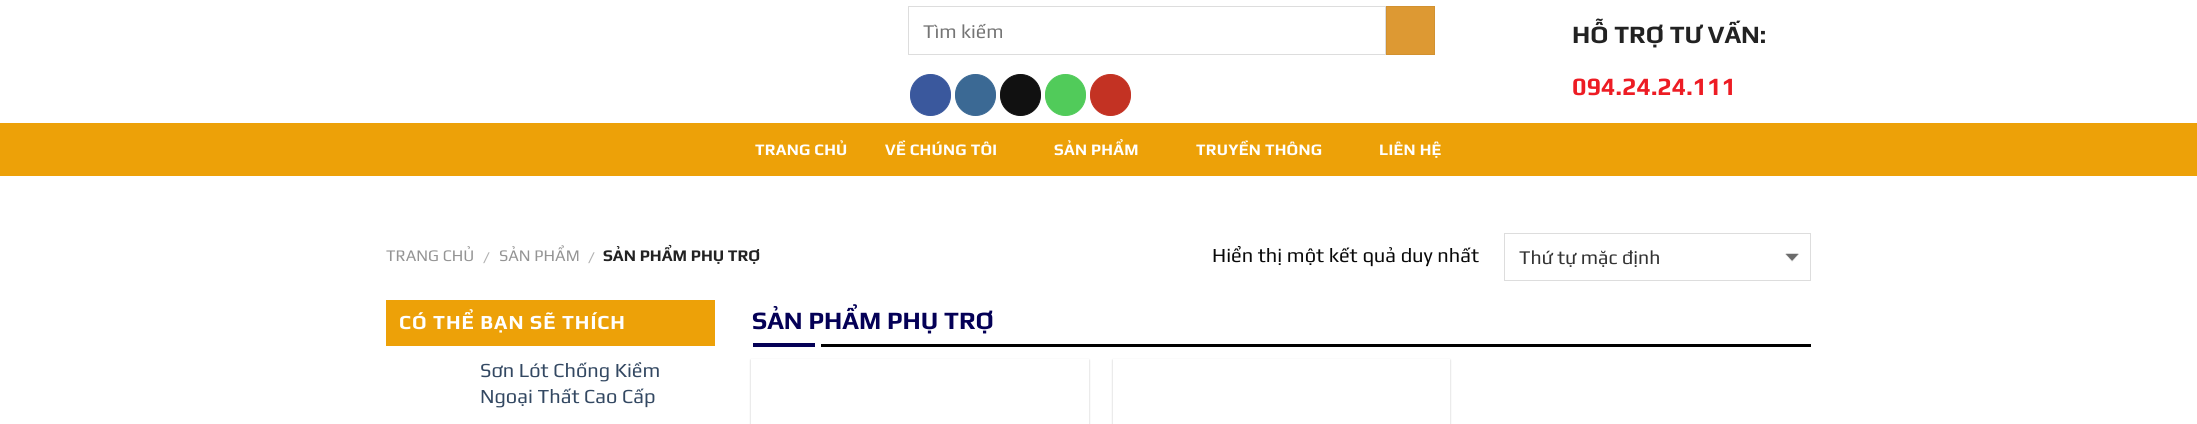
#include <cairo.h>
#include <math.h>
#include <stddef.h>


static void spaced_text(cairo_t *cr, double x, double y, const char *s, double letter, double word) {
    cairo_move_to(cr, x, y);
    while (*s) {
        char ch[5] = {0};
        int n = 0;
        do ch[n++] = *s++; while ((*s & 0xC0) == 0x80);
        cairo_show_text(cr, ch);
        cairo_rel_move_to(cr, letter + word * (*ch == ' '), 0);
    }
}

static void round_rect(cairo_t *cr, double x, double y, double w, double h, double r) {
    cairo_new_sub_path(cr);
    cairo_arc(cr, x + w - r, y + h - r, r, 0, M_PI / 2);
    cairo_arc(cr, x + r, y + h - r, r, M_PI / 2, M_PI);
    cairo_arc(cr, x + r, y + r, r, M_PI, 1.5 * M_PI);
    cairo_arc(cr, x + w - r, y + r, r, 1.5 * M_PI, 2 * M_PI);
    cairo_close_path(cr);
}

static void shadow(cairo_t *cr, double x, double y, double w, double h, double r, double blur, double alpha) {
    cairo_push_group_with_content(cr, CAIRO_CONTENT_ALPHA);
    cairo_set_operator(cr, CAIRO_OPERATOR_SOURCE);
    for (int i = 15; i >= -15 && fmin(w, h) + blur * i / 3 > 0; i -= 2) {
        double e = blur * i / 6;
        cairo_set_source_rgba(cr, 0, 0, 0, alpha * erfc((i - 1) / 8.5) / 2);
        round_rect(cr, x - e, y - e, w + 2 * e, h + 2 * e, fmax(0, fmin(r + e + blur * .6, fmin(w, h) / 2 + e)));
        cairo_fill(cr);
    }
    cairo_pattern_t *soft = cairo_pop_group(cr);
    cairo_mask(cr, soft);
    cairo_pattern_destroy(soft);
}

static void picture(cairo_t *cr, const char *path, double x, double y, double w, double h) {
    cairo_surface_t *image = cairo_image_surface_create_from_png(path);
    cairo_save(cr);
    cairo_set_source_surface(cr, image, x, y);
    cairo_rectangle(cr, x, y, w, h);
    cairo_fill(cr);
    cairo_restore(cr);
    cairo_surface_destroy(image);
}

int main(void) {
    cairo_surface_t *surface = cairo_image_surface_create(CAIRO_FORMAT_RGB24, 2197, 424);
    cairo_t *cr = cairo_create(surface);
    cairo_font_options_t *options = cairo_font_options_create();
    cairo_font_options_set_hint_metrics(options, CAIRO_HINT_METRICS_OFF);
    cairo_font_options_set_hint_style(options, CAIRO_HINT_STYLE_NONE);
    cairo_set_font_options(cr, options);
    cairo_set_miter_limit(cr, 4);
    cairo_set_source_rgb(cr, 1, 1, 1);
    cairo_paint(cr);
    cairo_rectangle(cr, 908.5, 6.5, 477, 48);
    cairo_set_source_rgb(cr, 0.867, 0.867, 0.867);
    cairo_set_line_width(cr, 1);
    cairo_stroke(cr);
    cairo_select_font_face(cr, "Play", CAIRO_FONT_SLANT_NORMAL, CAIRO_FONT_WEIGHT_NORMAL);
    cairo_set_font_size(cr, 19.5);
    cairo_set_source_rgb(cr, 0.459, 0.459, 0.459);
    cairo_move_to(cr, 923, 38);
    cairo_show_text(cr, "Tìm kiếm");
    cairo_set_source_rgb(cr, 0.867, 0.6, 0.2);
    cairo_rectangle(cr, 1386.5, 6.5, 48, 48);
    cairo_fill_preserve(cr);
    cairo_set_source_rgb(cr, 0.824, 0.569, 0.188);
    cairo_stroke(cr);
    cairo_set_source_rgb(cr, 0.227, 0.345, 0.616);
    round_rect(cr, 910.5, 74.5, 40, 41, 20);
    cairo_fill_preserve(cr);
    cairo_stroke(cr);
    cairo_set_source_rgb(cr, 0.231, 0.412, 0.58);
    round_rect(cr, 955.5, 74.5, 40, 41, 20);
    cairo_fill_preserve(cr);
    cairo_stroke(cr);
    cairo_set_source_rgb(cr, 0.067, 0.067, 0.067);
    round_rect(cr, 1000.5, 74.5, 40, 41, 20);
    cairo_fill_preserve(cr);
    cairo_stroke(cr);
    cairo_set_source_rgb(cr, 0.318, 0.796, 0.353);
    round_rect(cr, 1045.5, 74.5, 40, 41, 20);
    cairo_fill_preserve(cr);
    cairo_stroke(cr);
    cairo_set_source_rgb(cr, 0.765, 0.196, 0.137);
    round_rect(cr, 1090.5, 74.5, 40, 41, 20);
    cairo_fill_preserve(cr);
    cairo_stroke(cr);
    cairo_select_font_face(cr, "Play", CAIRO_FONT_SLANT_NORMAL, CAIRO_FONT_WEIGHT_BOLD);
    cairo_set_font_size(cr, 25);
    cairo_set_source_rgb(cr, 0.133, 0.133, 0.133);
    cairo_move_to(cr, 1572, 43);
    cairo_show_text(cr, "HỖ TRỢ TƯ VẤN:");
    cairo_set_source_rgb(cr, 0.929, 0.11, 0.141);
    cairo_move_to(cr, 1572, 95);
    cairo_show_text(cr, "094.24.24.111");
    cairo_set_source_rgb(cr, 0.929, 0.631, 0.035);
    cairo_rectangle(cr, 0, 123, 2197, 53);
    cairo_fill(cr);
    cairo_set_font_size(cr, 16);
    cairo_set_source_rgb(cr, 1, 1, 1);
    spaced_text(cr, 755, 155, "TRANG CHỦ", 0.25, 0);
    spaced_text(cr, 885, 155, "VỀ CHÚNG TÔI", 0.25, 0);
    spaced_text(cr, 1054, 155, "SẢN PHẨM", 0.25, 0);
    spaced_text(cr, 1196, 155, "TRUYỀN THÔNG", 0.25, 0);
    spaced_text(cr, 1379, 155, "LIÊN HỆ", 0.25, 0);
    cairo_select_font_face(cr, "Play", CAIRO_FONT_SLANT_NORMAL, CAIRO_FONT_WEIGHT_NORMAL);
    cairo_set_font_size(cr, 16.25);
    cairo_set_source_rgb(cr, 0.58, 0.58, 0.58);
    cairo_move_to(cr, 386, 261);
    cairo_show_text(cr, "TRANG CHỦ");
    cairo_set_source_rgb(cr, 0.698, 0.698, 0.698);
    cairo_move_to(cr, 483, 263);
    cairo_show_text(cr, "/");
    cairo_set_source_rgb(cr, 0.58, 0.58, 0.58);
    cairo_move_to(cr, 499, 261);
    cairo_show_text(cr, "SẢN PHẨM");
    cairo_set_source_rgb(cr, 0.698, 0.698, 0.698);
    cairo_move_to(cr, 588, 263);
    cairo_show_text(cr, "/");
    cairo_select_font_face(cr, "Play", CAIRO_FONT_SLANT_NORMAL, CAIRO_FONT_WEIGHT_BOLD);
    cairo_set_source_rgb(cr, 0.133, 0.133, 0.133);
    cairo_move_to(cr, 603, 261);
    cairo_show_text(cr, "SẢN PHẨM PHỤ TRỢ");
    cairo_select_font_face(cr, "Play", CAIRO_FONT_SLANT_NORMAL, CAIRO_FONT_WEIGHT_NORMAL);
    cairo_set_font_size(cr, 20);
    cairo_set_source_rgb(cr, 0.039, 0.039, 0.039);
    cairo_move_to(cr, 1212, 262);
    cairo_show_text(cr, "Hiển thị một kết quả duy nhất");
    picture(cr, "img1.png", 1785, 253, 14, 9);
    cairo_rectangle(cr, 1504.5, 233.5, 306, 47);
    cairo_set_source_rgb(cr, 0.867, 0.867, 0.867);
    cairo_stroke(cr);
    cairo_set_font_size(cr, 19.5);
    cairo_set_source_rgb(cr, 0.2, 0.2, 0.2);
    cairo_move_to(cr, 1519, 264);
    cairo_show_text(cr, "Thứ tự mặc định");
    cairo_set_source_rgb(cr, 0.929, 0.631, 0.035);
    cairo_rectangle(cr, 386, 300, 329, 46);
    cairo_fill(cr);
    cairo_select_font_face(cr, "Play", CAIRO_FONT_SLANT_NORMAL, CAIRO_FONT_WEIGHT_BOLD);
    cairo_set_font_size(cr, 20);
    cairo_set_source_rgb(cr, 1, 1, 1);
    spaced_text(cr, 399, 329, "CÓ THỂ BẠN SẼ THÍCH", 1, 0);
    cairo_select_font_face(cr, "Play", CAIRO_FONT_SLANT_NORMAL, CAIRO_FONT_WEIGHT_NORMAL);
    cairo_set_source_rgb(cr, 0.2, 0.282, 0.384);
    cairo_move_to(cr, 480, 377);
    cairo_show_text(cr, "Sơn Lót Chống Kiềm");
    cairo_move_to(cr, 480, 403);
    cairo_show_text(cr, "Ngoại Thất Cao Cấp");
    cairo_select_font_face(cr, "Play", CAIRO_FONT_SLANT_NORMAL, CAIRO_FONT_WEIGHT_BOLD);
    cairo_set_font_size(cr, 25);
    cairo_set_source_rgb(cr, 0.016, 0, 0.337);
    cairo_move_to(cr, 752, 329);
    cairo_show_text(cr, "SẢN PHẨM PHỤ TRỢ");
    cairo_rectangle(cr, 753, 343, 62, 4);
    cairo_fill(cr);
    cairo_set_source_rgb(cr, 0, 0, 0);
    cairo_rectangle(cr, 821, 344, 990, 3);
    cairo_fill(cr);
    cairo_set_source_rgb(cr, 0, 0, 0);
    shadow(cr, 751, 360, 338, 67, 0, 1, 0.24);
    cairo_set_source_rgb(cr, 1, 1, 1);
    cairo_rectangle(cr, 751, 359, 338, 65);
    cairo_fill(cr);
    cairo_save(cr);
    cairo_set_fill_rule(cr, CAIRO_FILL_RULE_EVEN_ODD);
    cairo_new_path(cr);
    cairo_move_to(cr, 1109, 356);
    cairo_line_to(cr, 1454, 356);
    cairo_line_to(cr, 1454, 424);
    cairo_line_to(cr, 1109, 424);
    cairo_close_path(cr);
    cairo_move_to(cr, 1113, 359);
    cairo_line_to(cr, 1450, 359);
    cairo_line_to(cr, 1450, 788);
    cairo_line_to(cr, 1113, 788);
    cairo_close_path(cr);
    cairo_clip(cr);
    cairo_set_source_rgb(cr, 0, 0, 0);
    shadow(cr, 1113, 360, 337, 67, 0, 1, 0.24);
    cairo_restore(cr);
    cairo_surface_write_to_png(surface, "page.png");
    cairo_font_options_destroy(options);
    cairo_destroy(cr);
    cairo_surface_destroy(surface);
    return 0;
}
